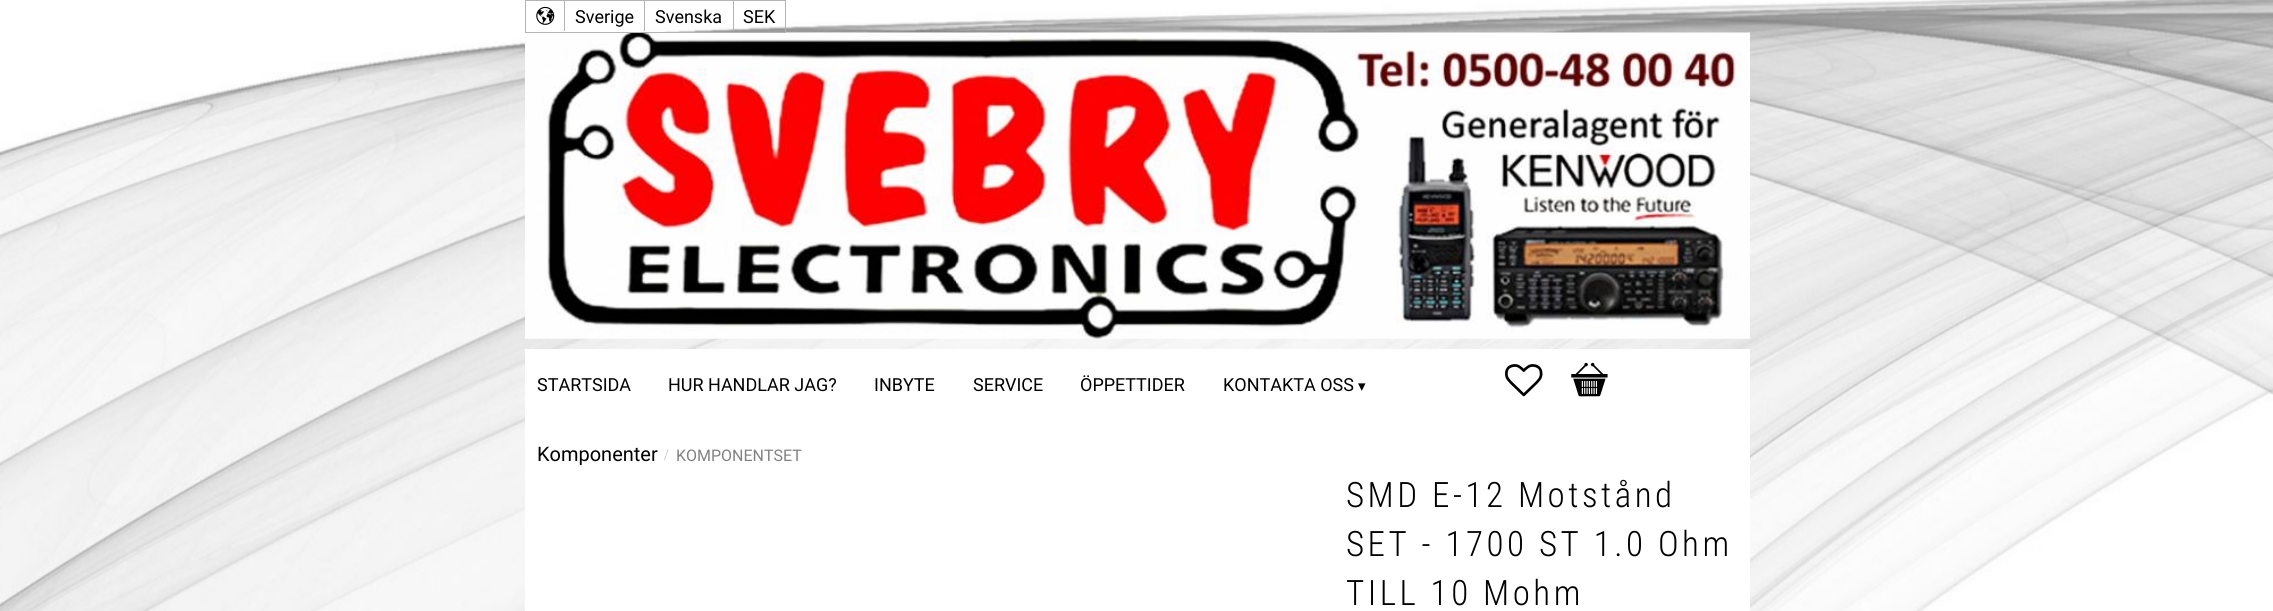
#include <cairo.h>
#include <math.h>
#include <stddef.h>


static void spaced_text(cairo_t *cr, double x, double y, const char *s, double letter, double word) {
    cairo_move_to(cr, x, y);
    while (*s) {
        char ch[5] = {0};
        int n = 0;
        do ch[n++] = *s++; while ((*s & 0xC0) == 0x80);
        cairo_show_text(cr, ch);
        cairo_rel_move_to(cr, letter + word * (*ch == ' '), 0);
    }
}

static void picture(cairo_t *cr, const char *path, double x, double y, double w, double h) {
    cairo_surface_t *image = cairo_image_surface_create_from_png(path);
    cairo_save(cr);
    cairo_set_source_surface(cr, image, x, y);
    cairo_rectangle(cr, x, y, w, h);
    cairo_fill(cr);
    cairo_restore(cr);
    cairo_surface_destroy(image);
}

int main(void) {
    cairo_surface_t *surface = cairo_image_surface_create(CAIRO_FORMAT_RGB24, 2273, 611);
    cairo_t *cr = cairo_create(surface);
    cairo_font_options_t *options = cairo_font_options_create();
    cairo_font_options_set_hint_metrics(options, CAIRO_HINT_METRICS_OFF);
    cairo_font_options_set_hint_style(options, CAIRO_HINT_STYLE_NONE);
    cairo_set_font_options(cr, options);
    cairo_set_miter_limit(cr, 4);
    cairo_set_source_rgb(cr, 1, 1, 1);
    cairo_paint(cr);
    picture(cr, "img1.png", 0, 0, 2273, 611);
    picture(cr, "img3.png", 525, 32, 1225, 307);
    cairo_rectangle(cr, 525.5, 0.5, 260, 32);
    cairo_set_source_rgb(cr, 0.706, 0.706, 0.706);
    cairo_set_line_width(cr, 1);
    cairo_stroke(cr);
    picture(cr, "img2.png", 536, 6, 19, 19);
    cairo_rectangle(cr, 564, 1, 1, 30);
    cairo_fill(cr);
    cairo_select_font_face(cr, "Roboto", CAIRO_FONT_SLANT_NORMAL, CAIRO_FONT_WEIGHT_NORMAL);
    cairo_set_font_size(cr, 18);
    cairo_set_source_rgb(cr, 0, 0, 0);
    cairo_move_to(cr, 575, 23);
    cairo_show_text(cr, "Sverige");
    cairo_set_source_rgb(cr, 0.706, 0.706, 0.706);
    cairo_rectangle(cr, 644, 1, 1, 30);
    cairo_fill(cr);
    cairo_set_source_rgb(cr, 0, 0, 0);
    cairo_move_to(cr, 655, 23);
    cairo_show_text(cr, "Svenska");
    cairo_set_source_rgb(cr, 0.706, 0.706, 0.706);
    cairo_rectangle(cr, 733, 1, 1, 30);
    cairo_fill(cr);
    cairo_set_source_rgb(cr, 0, 0, 0);
    cairo_move_to(cr, 743, 23);
    cairo_show_text(cr, "SEK");
    cairo_set_source_rgb(cr, 1, 1, 1);
    cairo_rectangle(cr, 525, 349, 1225, 262);
    cairo_fill(cr);
    cairo_set_source_rgb(cr, 0, 0, 0);
    cairo_move_to(cr, 537, 391);
    cairo_show_text(cr, "STARTSIDA");
    cairo_move_to(cr, 668, 391);
    cairo_show_text(cr, "HUR HANDLAR JAG?");
    cairo_move_to(cr, 874, 391);
    cairo_show_text(cr, "INBYTE");
    cairo_move_to(cr, 973, 391);
    cairo_show_text(cr, "SERVICE");
    cairo_move_to(cr, 1080, 391);
    cairo_show_text(cr, "ÖPPETTIDER");
    cairo_move_to(cr, 1223, 391);
    cairo_show_text(cr, "KONTAKTA OSS");
    cairo_select_font_face(cr, "DejaVu Sans", CAIRO_FONT_SLANT_NORMAL, CAIRO_FONT_WEIGHT_NORMAL);
    cairo_set_font_size(cr, 15);
    cairo_move_to(cr, 1358, 391);
    cairo_show_text(cr, "▾");
    picture(cr, "img4.png", 1505, 364, 38, 33);
    picture(cr, "img5.png", 1571, 362, 37, 35);
    cairo_select_font_face(cr, "Roboto", CAIRO_FONT_SLANT_NORMAL, CAIRO_FONT_WEIGHT_NORMAL);
    cairo_set_font_size(cr, 20);
    cairo_move_to(cr, 537, 461);
    cairo_show_text(cr, "Komponenter");
    cairo_select_font_face(cr, "Liberation Serif", CAIRO_FONT_SLANT_NORMAL, CAIRO_FONT_WEIGHT_NORMAL);
    cairo_set_font_size(cr, 16);
    cairo_set_source_rgb(cr, 0.765, 0.765, 0.765);
    cairo_move_to(cr, 664, 460);
    cairo_show_text(cr, "/");
    cairo_select_font_face(cr, "Roboto", CAIRO_FONT_SLANT_NORMAL, CAIRO_FONT_WEIGHT_NORMAL);
    cairo_set_source_rgb(cr, 0.506, 0.506, 0.506);
    cairo_move_to(cr, 676, 461);
    cairo_show_text(cr, "KOMPONENTSET");
    cairo_select_font_face(cr, "Roboto Condensed Light", CAIRO_FONT_SLANT_NORMAL, CAIRO_FONT_WEIGHT_NORMAL);
    cairo_set_font_size(cr, 35);
    cairo_set_source_rgb(cr, 0, 0, 0);
    spaced_text(cr, 1346, 507, "SMD E-12 Motstånd", 3.5, 0);
    spaced_text(cr, 1346, 556, "SET - 1700 ST 1.0 Ohm", 3.5, 0);
    spaced_text(cr, 1346, 605, "TILL 10 Mohm", 3.5, 0);
    cairo_surface_write_to_png(surface, "page.png");
    cairo_font_options_destroy(options);
    cairo_destroy(cr);
    cairo_surface_destroy(surface);
    return 0;
}
